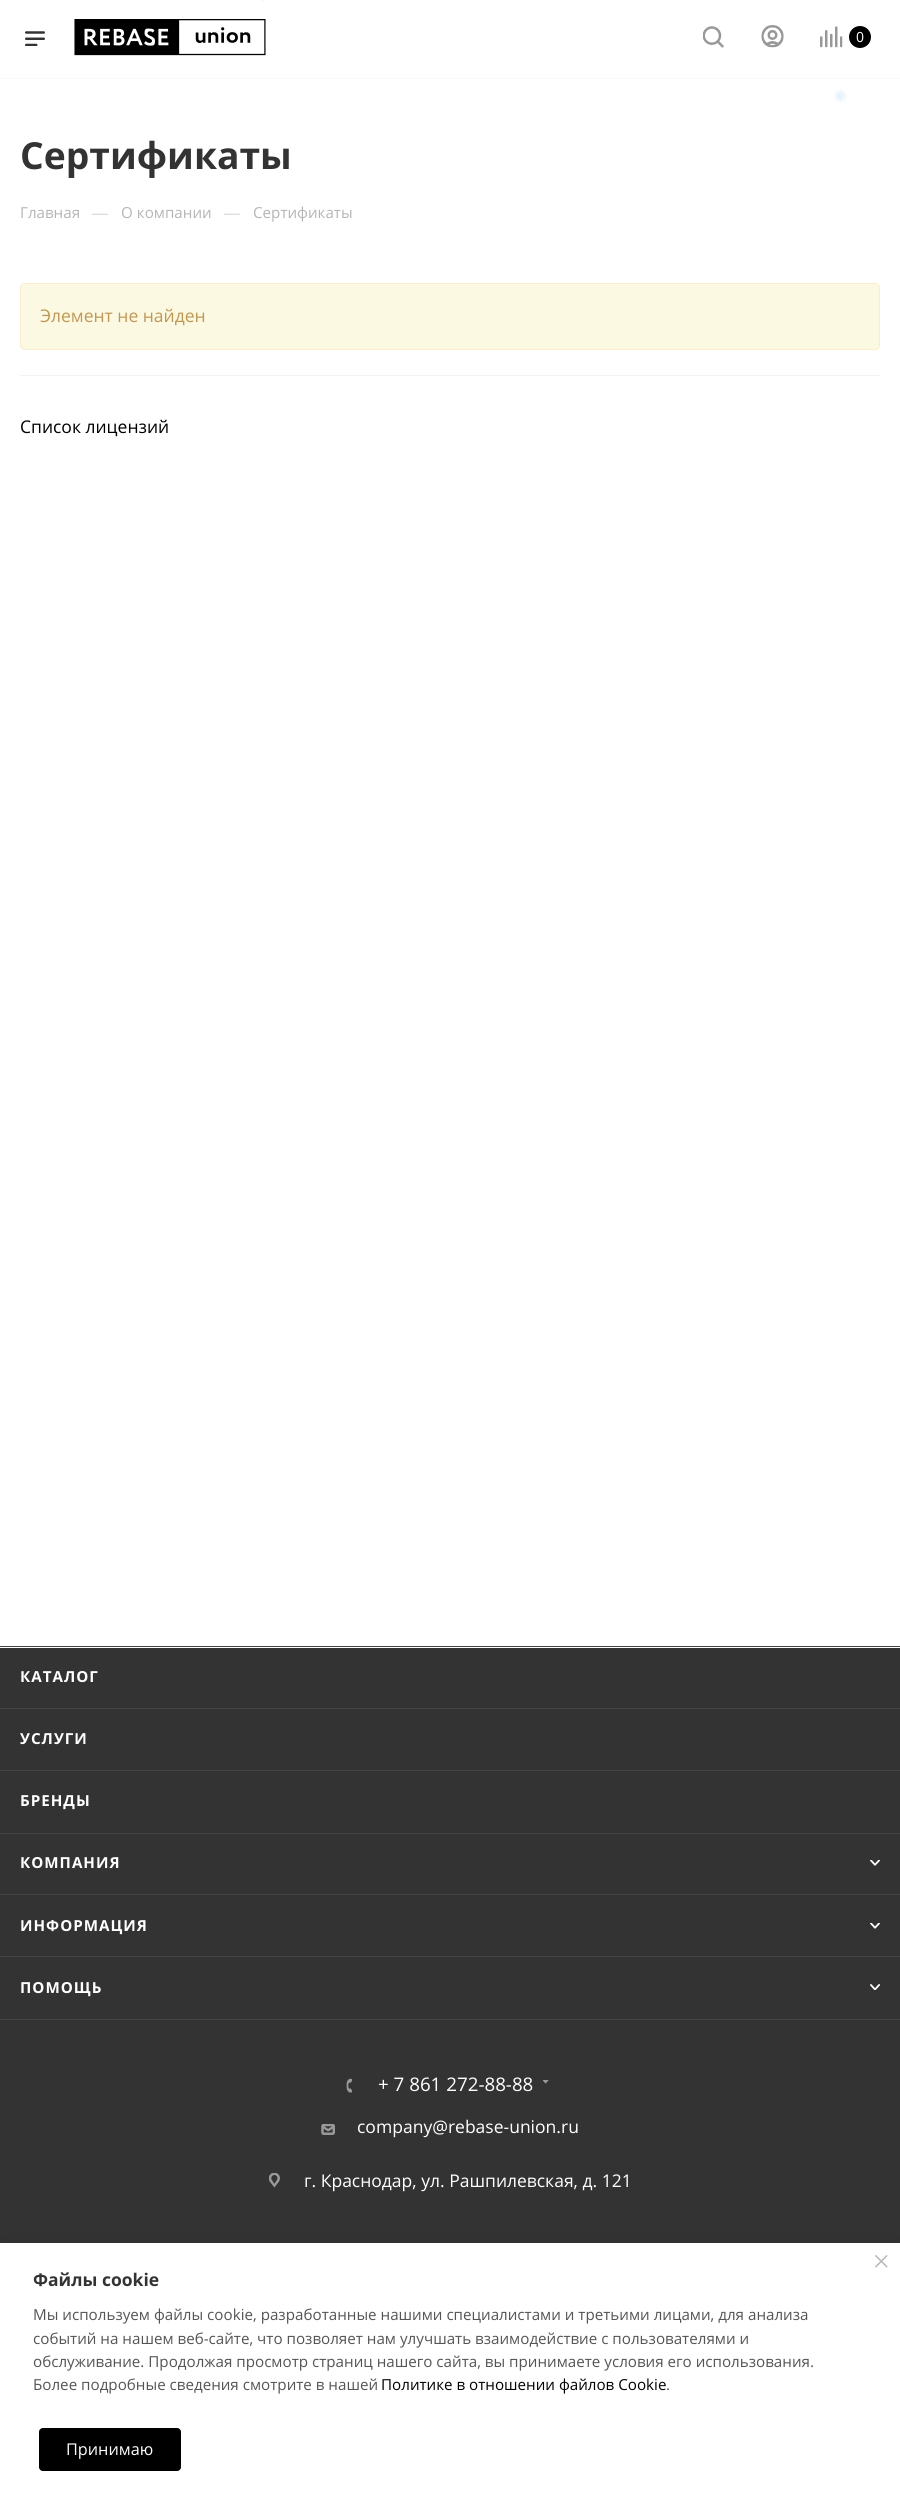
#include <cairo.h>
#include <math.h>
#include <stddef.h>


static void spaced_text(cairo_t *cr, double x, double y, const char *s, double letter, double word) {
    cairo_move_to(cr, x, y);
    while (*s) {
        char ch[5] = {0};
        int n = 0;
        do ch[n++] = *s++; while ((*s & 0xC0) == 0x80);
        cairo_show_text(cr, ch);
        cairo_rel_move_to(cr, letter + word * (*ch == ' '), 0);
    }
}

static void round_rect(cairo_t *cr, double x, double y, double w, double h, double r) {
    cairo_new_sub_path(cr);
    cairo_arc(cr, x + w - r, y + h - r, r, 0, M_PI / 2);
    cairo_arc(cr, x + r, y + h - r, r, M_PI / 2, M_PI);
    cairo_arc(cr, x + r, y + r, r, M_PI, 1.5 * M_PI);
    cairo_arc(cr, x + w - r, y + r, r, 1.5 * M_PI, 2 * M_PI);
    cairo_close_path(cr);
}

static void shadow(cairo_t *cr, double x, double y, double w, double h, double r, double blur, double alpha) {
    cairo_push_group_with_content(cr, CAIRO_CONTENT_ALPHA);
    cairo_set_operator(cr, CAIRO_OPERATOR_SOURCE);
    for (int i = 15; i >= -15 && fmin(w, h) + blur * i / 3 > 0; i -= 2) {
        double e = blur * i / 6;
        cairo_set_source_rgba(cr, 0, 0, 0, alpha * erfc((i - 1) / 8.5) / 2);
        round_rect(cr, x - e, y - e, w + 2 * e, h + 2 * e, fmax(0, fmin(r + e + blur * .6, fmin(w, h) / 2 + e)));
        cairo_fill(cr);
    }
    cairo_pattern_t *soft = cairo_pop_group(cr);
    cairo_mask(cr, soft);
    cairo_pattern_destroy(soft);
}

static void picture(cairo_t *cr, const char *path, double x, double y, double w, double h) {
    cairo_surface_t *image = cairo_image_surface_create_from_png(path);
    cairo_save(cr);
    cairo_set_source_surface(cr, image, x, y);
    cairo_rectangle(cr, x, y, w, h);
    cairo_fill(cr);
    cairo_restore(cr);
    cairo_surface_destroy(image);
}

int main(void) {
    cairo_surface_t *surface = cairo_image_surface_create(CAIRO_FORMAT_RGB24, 900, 2502);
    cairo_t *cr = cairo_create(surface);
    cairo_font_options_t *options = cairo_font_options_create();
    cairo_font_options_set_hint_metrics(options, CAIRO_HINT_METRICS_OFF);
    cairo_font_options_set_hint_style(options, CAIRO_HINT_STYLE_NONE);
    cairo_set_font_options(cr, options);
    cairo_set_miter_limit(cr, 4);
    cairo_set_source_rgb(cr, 1, 1, 1);
    cairo_paint(cr);
    picture(cr, "img1.png", 261, 0, 4, 2);
    cairo_set_source_rgb(cr, 0.973, 0.973, 0.973);
    cairo_rectangle(cr, 0, 78, 900, 1);
    cairo_fill(cr);
    picture(cr, "img2.png", 25, 31, 20, 15);
    picture(cr, "img3.png", 74, 19, 192, 37);
    picture(cr, "img4.png", 703, 26, 21, 22);
    picture(cr, "img5.png", 761, 25, 23, 23);
    picture(cr, "img6.png", 820, 26, 23, 22);
    cairo_set_source_rgb(cr, 0, 0, 0);
    cairo_arc(cr, 860, 37, 11, 0, 2 * M_PI);
    cairo_fill(cr);
    cairo_select_font_face(cr, "Open Sans", CAIRO_FONT_SLANT_NORMAL, CAIRO_FONT_WEIGHT_NORMAL);
    cairo_set_font_size(cr, 14);
    cairo_set_source_rgb(cr, 1, 1, 1);
    cairo_move_to(cr, 856, 42);
    cairo_show_text(cr, "0");
    cairo_select_font_face(cr, "Open Sans", CAIRO_FONT_SLANT_NORMAL, CAIRO_FONT_WEIGHT_BOLD);
    cairo_set_font_size(cr, 37.25);
    cairo_set_source_rgb(cr, 0.2, 0.2, 0.2);
    cairo_move_to(cr, 20, 169);
    cairo_show_text(cr, "Сертификаты");
    cairo_select_font_face(cr, "Open Sans", CAIRO_FONT_SLANT_NORMAL, CAIRO_FONT_WEIGHT_NORMAL);
    cairo_set_font_size(cr, 15.17);
    cairo_set_source_rgb(cr, 0.714, 0.71, 0.71);
    cairo_move_to(cr, 20, 218);
    cairo_show_text(cr, "Главная");
    cairo_set_font_size(cr, 17.5);
    cairo_set_source_rgb(cr, 0.867, 0.867, 0.867);
    cairo_move_to(cr, 91, 219);
    cairo_show_text(cr, "—");
    cairo_set_font_size(cr, 15.17);
    cairo_set_source_rgb(cr, 0.714, 0.71, 0.71);
    cairo_move_to(cr, 121, 218);
    cairo_show_text(cr, "О компании");
    cairo_set_font_size(cr, 17.5);
    cairo_set_source_rgb(cr, 0.867, 0.867, 0.867);
    cairo_move_to(cr, 223, 219);
    cairo_show_text(cr, "—");
    cairo_set_font_size(cr, 15.17);
    cairo_set_source_rgb(cr, 0.714, 0.71, 0.71);
    cairo_move_to(cr, 253, 218);
    cairo_show_text(cr, "Сертификаты");
    cairo_set_source_rgb(cr, 0.988, 0.973, 0.89);
    round_rect(cr, 20.5, 283.5, 859, 66, 4.5);
    cairo_fill_preserve(cr);
    cairo_set_source_rgb(cr, 0.98, 0.922, 0.8);
    cairo_set_line_width(cr, 1);
    cairo_stroke(cr);
    cairo_set_font_size(cr, 17.5);
    cairo_set_source_rgb(cr, 0.753, 0.596, 0.325);
    cairo_move_to(cr, 40, 322);
    cairo_show_text(cr, "Элемент не найден");
    cairo_set_source_rgb(cr, 0.949, 0.949, 0.949);
    cairo_rectangle(cr, 20, 375, 860, 1);
    cairo_fill(cr);
    cairo_set_source_rgb(cr, 0, 0, 0);
    cairo_move_to(cr, 20, 433);
    cairo_show_text(cr, "Список лицензий");
    cairo_set_source_rgb(cr, 0.2, 0.2, 0.2);
    cairo_rectangle(cr, 0, 1648, 900, 595);
    cairo_fill(cr);
    cairo_set_source_rgb(cr, 0.263, 0.263, 0.263);
    cairo_rectangle(cr, 0, 1646, 900, 1);
    cairo_fill(cr);
    cairo_rectangle(cr, 0, 1708, 900, 1);
    cairo_fill(cr);
    cairo_select_font_face(cr, "Open Sans", CAIRO_FONT_SLANT_NORMAL, CAIRO_FONT_WEIGHT_BOLD);
    cairo_set_font_size(cr, 15.17);
    cairo_set_source_rgb(cr, 1, 1, 1);
    spaced_text(cr, 20, 1682, "КАТАЛОГ", 1, 0);
    cairo_set_source_rgb(cr, 0.263, 0.263, 0.263);
    cairo_rectangle(cr, 0, 1770, 900, 1);
    cairo_fill(cr);
    cairo_set_source_rgb(cr, 1, 1, 1);
    spaced_text(cr, 20, 1744, "УСЛУГИ", 1, 0);
    cairo_set_source_rgb(cr, 0.263, 0.263, 0.263);
    cairo_rectangle(cr, 0, 1833, 900, 1);
    cairo_fill(cr);
    cairo_set_source_rgb(cr, 1, 1, 1);
    spaced_text(cr, 20, 1806, "БРЕНДЫ", 1, 0);
    cairo_set_source_rgb(cr, 0.263, 0.263, 0.263);
    cairo_rectangle(cr, 0, 1894, 900, 1);
    cairo_fill(cr);
    cairo_set_source_rgb(cr, 1, 1, 1);
    spaced_text(cr, 20, 1868, "КОМПАНИЯ", 1, 0);
    picture(cr, "img7.png", 870, 1860, 10, 6);
    cairo_set_source_rgb(cr, 0.263, 0.263, 0.263);
    cairo_rectangle(cr, 0, 1956, 900, 1);
    cairo_fill(cr);
    cairo_set_source_rgb(cr, 1, 1, 1);
    spaced_text(cr, 20, 1931, "ИНФОРМАЦИЯ", 1, 0);
    picture(cr, "img8.png", 870, 1923, 10, 6);
    cairo_set_source_rgb(cr, 0.263, 0.263, 0.263);
    cairo_rectangle(cr, 0, 2019, 900, 1);
    cairo_fill(cr);
    cairo_set_source_rgb(cr, 1, 1, 1);
    spaced_text(cr, 20, 1993, "ПОМОЩЬ", 1, 0);
    picture(cr, "img9.png", 870, 1984, 10, 6);
    picture(cr, "img10.png", 346, 2078, 7, 15);
    cairo_select_font_face(cr, "Open Sans", CAIRO_FONT_SLANT_NORMAL, CAIRO_FONT_WEIGHT_NORMAL);
    cairo_set_font_size(cr, 18.75);
    cairo_move_to(cr, 378, 2091);
    cairo_show_text(cr, "+ 7 861 272-88-88");
    picture(cr, "img11.png", 542, 2080, 7, 4);
    picture(cr, "img12.png", 321, 2124, 14, 11);
    cairo_set_font_size(cr, 17.5);
    cairo_move_to(cr, 357, 2133);
    cairo_show_text(cr, "company@rebase-union.ru");
    picture(cr, "img13.png", 269, 2173, 11, 15);
    cairo_move_to(cr, 304, 2187);
    cairo_show_text(cr, "г. Краснодар, ул. Рашпилевская, д. 121");
    cairo_set_source_rgb(cr, 0, 0, 0);
    shadow(cr, 0, 2249, 900, 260, 0, 12.5, 0.12);
    cairo_set_source_rgb(cr, 1, 1, 1);
    cairo_rectangle(cr, 0, 2243, 900, 259);
    cairo_fill(cr);
    picture(cr, "img14.png", 875, 2255, 13, 13);
    cairo_select_font_face(cr, "Open Sans", CAIRO_FONT_SLANT_NORMAL, CAIRO_FONT_WEIGHT_BOLD);
    cairo_set_source_rgb(cr, 0.2, 0.2, 0.2);
    cairo_move_to(cr, 33, 2286);
    cairo_show_text(cr, "Файлы cookie");
    cairo_select_font_face(cr, "Open Sans", CAIRO_FONT_SLANT_NORMAL, CAIRO_FONT_WEIGHT_NORMAL);
    cairo_set_font_size(cr, 15.17);
    cairo_set_source_rgb(cr, 0.333, 0.333, 0.333);
    cairo_move_to(cr, 33, 2320);
    cairo_show_text(cr, "Мы используем файлы cookie, разработанные нашими специалистами и третьими лицами, для анализа");
    cairo_move_to(cr, 33, 2344);
    cairo_show_text(cr, "событий на нашем веб-сайте, что позволяет нам улучшать взаимодействие с пользователями и");
    cairo_move_to(cr, 33, 2367);
    cairo_show_text(cr, "обслуживание. Продолжая просмотр страниц нашего сайта, вы принимаете условия его использования.");
    cairo_move_to(cr, 33, 2390);
    cairo_show_text(cr, "Более подробные сведения смотрите в нашей");
    cairo_set_source_rgb(cr, 0, 0, 0);
    cairo_move_to(cr, 381, 2390);
    cairo_show_text(cr, "Политике в отношении файлов Cookie");
    cairo_set_source_rgb(cr, 0.333, 0.333, 0.333);
    cairo_move_to(cr, 666, 2390);
    cairo_show_text(cr, ".");
    cairo_set_source_rgb(cr, 0, 0, 0);
    round_rect(cr, 39.5, 2428.5, 141, 42, 3.5);
    cairo_fill_preserve(cr);
    cairo_stroke(cr);
    cairo_set_font_size(cr, 16.25);
    cairo_set_source_rgb(cr, 1, 1, 1);
    cairo_move_to(cr, 66, 2455);
    cairo_show_text(cr, "Принимаю");
    picture(cr, "img15.png", 834, 89, 12, 14);
    cairo_surface_write_to_png(surface, "page.png");
    cairo_font_options_destroy(options);
    cairo_destroy(cr);
    cairo_surface_destroy(surface);
    return 0;
}
